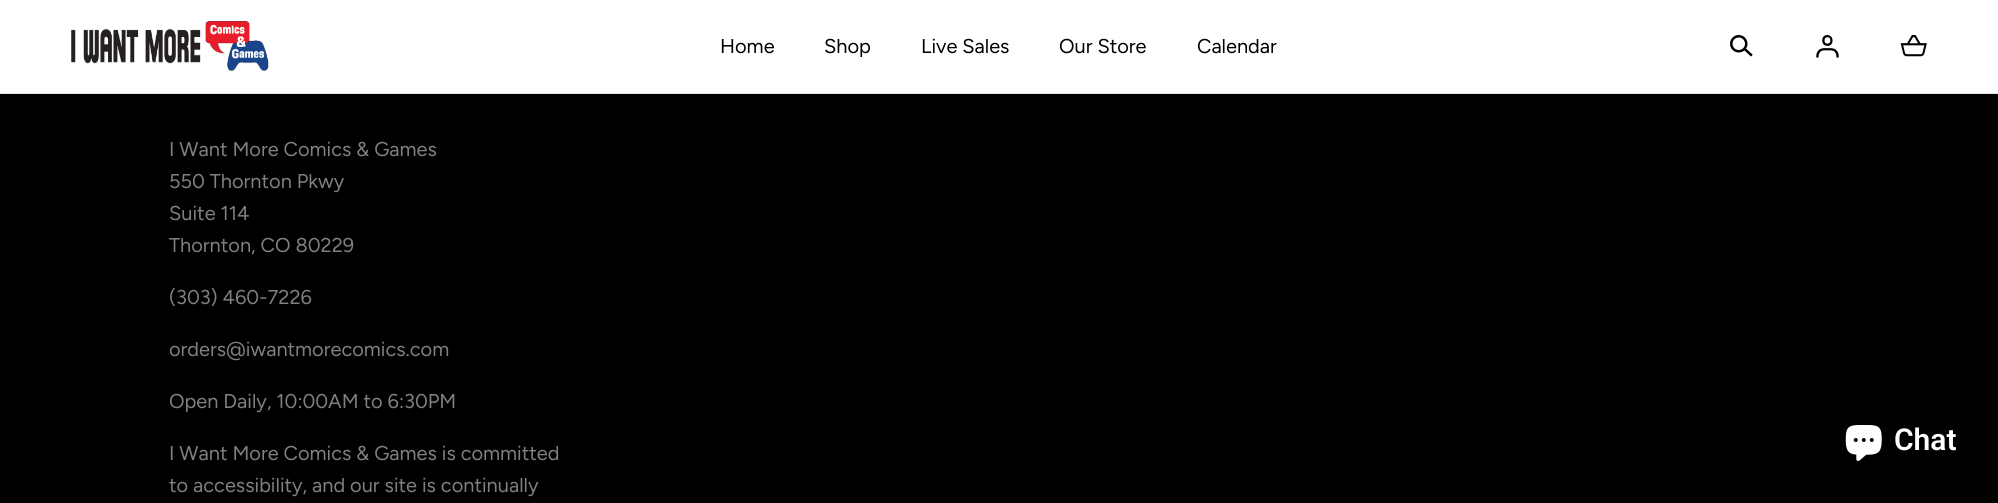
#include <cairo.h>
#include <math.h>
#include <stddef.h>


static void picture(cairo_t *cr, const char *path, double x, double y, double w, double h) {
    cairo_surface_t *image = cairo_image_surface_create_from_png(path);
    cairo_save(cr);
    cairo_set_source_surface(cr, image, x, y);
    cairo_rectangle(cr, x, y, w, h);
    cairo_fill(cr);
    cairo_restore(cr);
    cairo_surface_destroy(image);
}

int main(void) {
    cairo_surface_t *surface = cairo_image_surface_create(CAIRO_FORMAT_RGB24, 1998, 503);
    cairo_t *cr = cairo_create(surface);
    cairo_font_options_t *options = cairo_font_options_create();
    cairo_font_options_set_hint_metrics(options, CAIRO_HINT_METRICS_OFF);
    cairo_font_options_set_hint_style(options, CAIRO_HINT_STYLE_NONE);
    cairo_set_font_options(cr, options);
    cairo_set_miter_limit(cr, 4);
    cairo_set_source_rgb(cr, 0, 0, 0);
    cairo_paint(cr);
    cairo_set_source_rgb(cr, 1, 1, 1);
    cairo_rectangle(cr, 0, 0, 1998, 93);
    cairo_fill(cr);
    cairo_set_source_rgb(cr, 0.902, 0.902, 0.902);
    cairo_rectangle(cr, 0, 93, 1998, 1);
    cairo_fill(cr);
    picture(cr, "img1.png", 71, 21, 198, 50);
    cairo_select_font_face(cr, "Figtree", CAIRO_FONT_SLANT_NORMAL, CAIRO_FONT_WEIGHT_NORMAL);
    cairo_set_font_size(cr, 20);
    cairo_set_source_rgb(cr, 0, 0, 0);
    cairo_move_to(cr, 720, 53);
    cairo_show_text(cr, "Home");
    cairo_move_to(cr, 824, 53);
    cairo_show_text(cr, "Shop");
    cairo_move_to(cr, 921, 53);
    cairo_show_text(cr, "Live Sales");
    cairo_move_to(cr, 1059, 53);
    cairo_show_text(cr, "Our Store");
    cairo_move_to(cr, 1197, 53);
    cairo_show_text(cr, "Calendar");
    picture(cr, "img2.png", 1730, 35, 23, 22);
    picture(cr, "img3.png", 1816, 35, 23, 23);
    picture(cr, "img4.png", 1900, 35, 27, 22);
    cairo_set_source_rgb(cr, 0.502, 0.502, 0.502);
    cairo_move_to(cr, 169, 156);
    cairo_show_text(cr, "I Want More Comics & Games");
    cairo_move_to(cr, 169, 188);
    cairo_show_text(cr, "550 Thornton Pkwy");
    cairo_move_to(cr, 169, 220);
    cairo_show_text(cr, "Suite 114");
    cairo_move_to(cr, 169, 252);
    cairo_show_text(cr, "Thornton, CO 80229");
    cairo_move_to(cr, 169, 304);
    cairo_show_text(cr, "(303) 460-7226");
    cairo_move_to(cr, 169, 356);
    cairo_show_text(cr, "orders@iwantmorecomics.com");
    cairo_move_to(cr, 169, 408);
    cairo_show_text(cr, "Open Daily, 10:00AM to 6:30PM");
    cairo_move_to(cr, 169, 460);
    cairo_show_text(cr, "I Want More Comics & Games is committed");
    cairo_move_to(cr, 169, 492);
    cairo_show_text(cr, "to accessibility, and our site is continually");
    picture(cr, "img5.png", 1845, 425, 37, 36);
    cairo_select_font_face(cr, "Roboto SemiBold", CAIRO_FONT_SLANT_NORMAL, CAIRO_FONT_WEIGHT_NORMAL);
    cairo_set_font_size(cr, 30);
    cairo_set_source_rgb(cr, 1, 1, 1);
    cairo_move_to(cr, 1894, 450);
    cairo_show_text(cr, "Chat");
    cairo_surface_write_to_png(surface, "page.png");
    cairo_font_options_destroy(options);
    cairo_destroy(cr);
    cairo_surface_destroy(surface);
    return 0;
}
